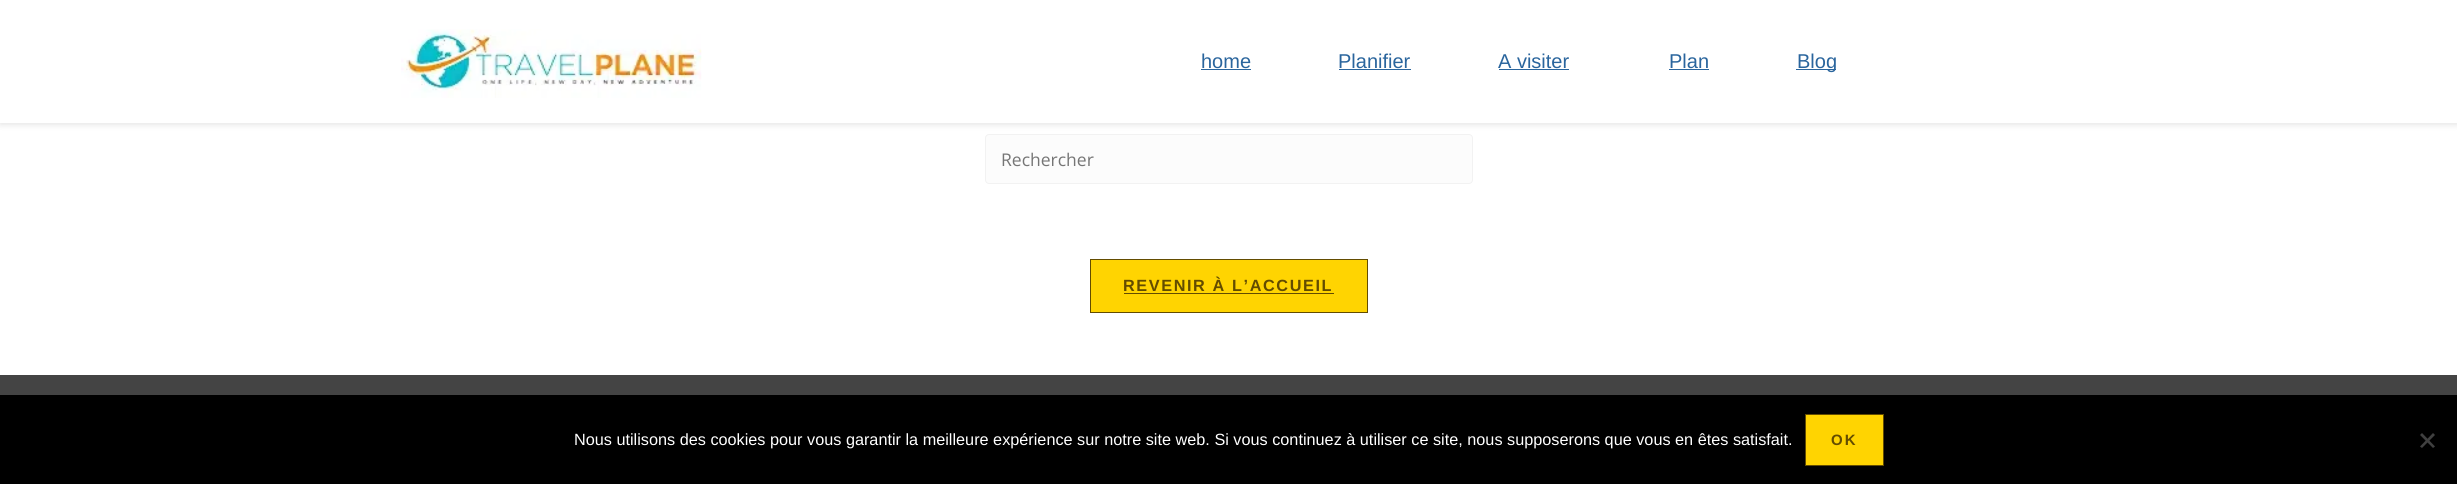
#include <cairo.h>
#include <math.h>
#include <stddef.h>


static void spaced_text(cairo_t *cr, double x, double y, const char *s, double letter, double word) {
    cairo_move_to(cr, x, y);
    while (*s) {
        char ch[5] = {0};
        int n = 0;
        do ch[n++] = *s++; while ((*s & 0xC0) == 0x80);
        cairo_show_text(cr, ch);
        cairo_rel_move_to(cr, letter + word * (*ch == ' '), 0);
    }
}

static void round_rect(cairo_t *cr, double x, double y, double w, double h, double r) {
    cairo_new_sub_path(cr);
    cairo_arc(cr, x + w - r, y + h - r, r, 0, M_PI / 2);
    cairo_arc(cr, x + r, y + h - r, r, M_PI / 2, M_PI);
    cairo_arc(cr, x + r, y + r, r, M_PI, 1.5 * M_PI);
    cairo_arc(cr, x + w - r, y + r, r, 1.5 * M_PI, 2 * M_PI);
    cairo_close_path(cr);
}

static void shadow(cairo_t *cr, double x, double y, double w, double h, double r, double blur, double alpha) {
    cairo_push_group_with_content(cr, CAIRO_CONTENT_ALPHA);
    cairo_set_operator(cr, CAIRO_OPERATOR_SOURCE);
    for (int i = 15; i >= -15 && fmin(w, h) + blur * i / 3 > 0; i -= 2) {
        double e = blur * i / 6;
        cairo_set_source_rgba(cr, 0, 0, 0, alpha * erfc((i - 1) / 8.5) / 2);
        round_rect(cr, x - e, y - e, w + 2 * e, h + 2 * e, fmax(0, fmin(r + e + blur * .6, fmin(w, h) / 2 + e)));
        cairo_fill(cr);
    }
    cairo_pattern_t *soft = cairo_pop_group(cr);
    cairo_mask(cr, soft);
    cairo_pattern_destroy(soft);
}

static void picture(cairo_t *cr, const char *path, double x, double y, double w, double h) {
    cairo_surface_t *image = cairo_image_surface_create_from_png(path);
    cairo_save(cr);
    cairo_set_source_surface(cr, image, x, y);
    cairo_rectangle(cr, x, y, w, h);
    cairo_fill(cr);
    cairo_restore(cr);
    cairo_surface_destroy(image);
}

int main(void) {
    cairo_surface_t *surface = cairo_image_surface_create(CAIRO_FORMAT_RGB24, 2457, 484);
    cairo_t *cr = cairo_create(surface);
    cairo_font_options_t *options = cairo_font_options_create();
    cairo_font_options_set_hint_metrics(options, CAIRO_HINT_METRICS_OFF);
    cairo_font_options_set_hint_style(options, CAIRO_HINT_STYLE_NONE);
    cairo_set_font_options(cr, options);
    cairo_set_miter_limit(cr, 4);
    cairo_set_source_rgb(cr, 1, 1, 1);
    cairo_paint(cr);
    cairo_set_source_rgb(cr, 0.988, 0.988, 0.988);
    round_rect(cr, 985.5, 134.5, 487, 49, 3.5);
    cairo_fill_preserve(cr);
    cairo_set_source_rgb(cr, 0.949, 0.949, 0.949);
    cairo_set_line_width(cr, 1);
    cairo_stroke(cr);
    cairo_set_source_rgb(cr, 0, 0, 0);
    shadow(cr, 0, 3, 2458, 122, 0, 3, 0.1);
    cairo_set_source_rgb(cr, 1, 1, 1);
    cairo_rectangle(cr, 0, 0, 2457, 123);
    cairo_fill(cr);
    picture(cr, "img1.png", 401, 29, 301, 69);
    cairo_select_font_face(cr, "Liberation Sans", CAIRO_FONT_SLANT_NORMAL, CAIRO_FONT_WEIGHT_NORMAL);
    cairo_set_font_size(cr, 20);
    cairo_set_source_rgb(cr, 0.165, 0.396, 0.616);
    cairo_move_to(cr, 1201, 68);
    cairo_show_text(cr, "home");
    cairo_rectangle(cr, 1201, 69, 50, 1);
    cairo_fill(cr);
    cairo_move_to(cr, 1338, 68);
    cairo_show_text(cr, "Planifier");
    cairo_rectangle(cr, 1339, 69, 72, 1);
    cairo_fill(cr);
    cairo_move_to(cr, 1498, 68);
    cairo_show_text(cr, "A visiter");
    cairo_rectangle(cr, 1499, 69, 70, 1);
    cairo_fill(cr);
    cairo_move_to(cr, 1669, 68);
    cairo_show_text(cr, "Plan");
    cairo_rectangle(cr, 1669, 69, 40, 1);
    cairo_fill(cr);
    cairo_rectangle(cr, 1796, 69, 40, 1);
    cairo_fill(cr);
    cairo_move_to(cr, 1797, 68);
    cairo_show_text(cr, "Blog");
    cairo_select_font_face(cr, "Open Sans", CAIRO_FONT_SLANT_NORMAL, CAIRO_FONT_WEIGHT_NORMAL);
    cairo_set_font_size(cr, 17.5);
    cairo_set_source_rgb(cr, 0.459, 0.459, 0.459);
    cairo_move_to(cr, 1001, 166);
    cairo_show_text(cr, "Rechercher");
    cairo_set_source_rgb(cr, 1, 0.831, 0.004);
    cairo_rectangle(cr, 1090.5, 259.5, 277, 53);
    cairo_fill_preserve(cr);
    cairo_set_source_rgb(cr, 0.388, 0.298, 0);
    cairo_stroke(cr);
    cairo_select_font_face(cr, "Liberation Sans", CAIRO_FONT_SLANT_NORMAL, CAIRO_FONT_WEIGHT_BOLD);
    cairo_set_font_size(cr, 16.25);
    spaced_text(cr, 1123, 291, "REVENIR À L’ACCUEIL", 1.6, 0);
    cairo_rectangle(cr, 1124, 293, 210, 1);
    cairo_fill(cr);
    cairo_set_source_rgb(cr, 0.267, 0.267, 0.267);
    cairo_rectangle(cr, 0, 375, 2457, 20);
    cairo_fill(cr);
    cairo_set_source_rgb(cr, 0, 0, 0);
    cairo_rectangle(cr, 0, 395, 2457, 89);
    cairo_fill(cr);
    cairo_select_font_face(cr, "Liberation Sans", CAIRO_FONT_SLANT_NORMAL, CAIRO_FONT_WEIGHT_NORMAL);
    cairo_set_source_rgb(cr, 1, 1, 1);
    cairo_move_to(cr, 574, 445);
    cairo_show_text(cr, "Nous utilisons des cookies pour vous garantir la meilleure expérience sur notre site web. Si vous continuez à utiliser ce site, nous supposerons que vous en êtes satisfait.");
    cairo_set_source_rgb(cr, 1, 0.831, 0.004);
    cairo_rectangle(cr, 1805.5, 414.5, 78, 51);
    cairo_fill_preserve(cr);
    cairo_set_source_rgb(cr, 0.388, 0.298, 0);
    cairo_stroke(cr);
    cairo_select_font_face(cr, "Liberation Sans", CAIRO_FONT_SLANT_NORMAL, CAIRO_FONT_WEIGHT_BOLD);
    cairo_set_font_size(cr, 15);
    spaced_text(cr, 1831, 445, "OK", 2, 0);
    cairo_set_source_rgb(cr, 0.251, 0.251, 0.251);
    cairo_new_path(cr);
    cairo_move_to(cr, 2433, 433);
    cairo_line_to(cr, 2435, 435);
    cairo_line_to(cr, 2422, 448);
    cairo_line_to(cr, 2420, 446.5);
    cairo_close_path(cr);
    cairo_fill(cr);
    cairo_new_path(cr);
    cairo_move_to(cr, 2420, 435);
    cairo_line_to(cr, 2422, 433);
    cairo_line_to(cr, 2435, 446.5);
    cairo_line_to(cr, 2433, 448);
    cairo_close_path(cr);
    cairo_fill(cr);
    cairo_surface_write_to_png(surface, "page.png");
    cairo_font_options_destroy(options);
    cairo_destroy(cr);
    cairo_surface_destroy(surface);
    return 0;
}
